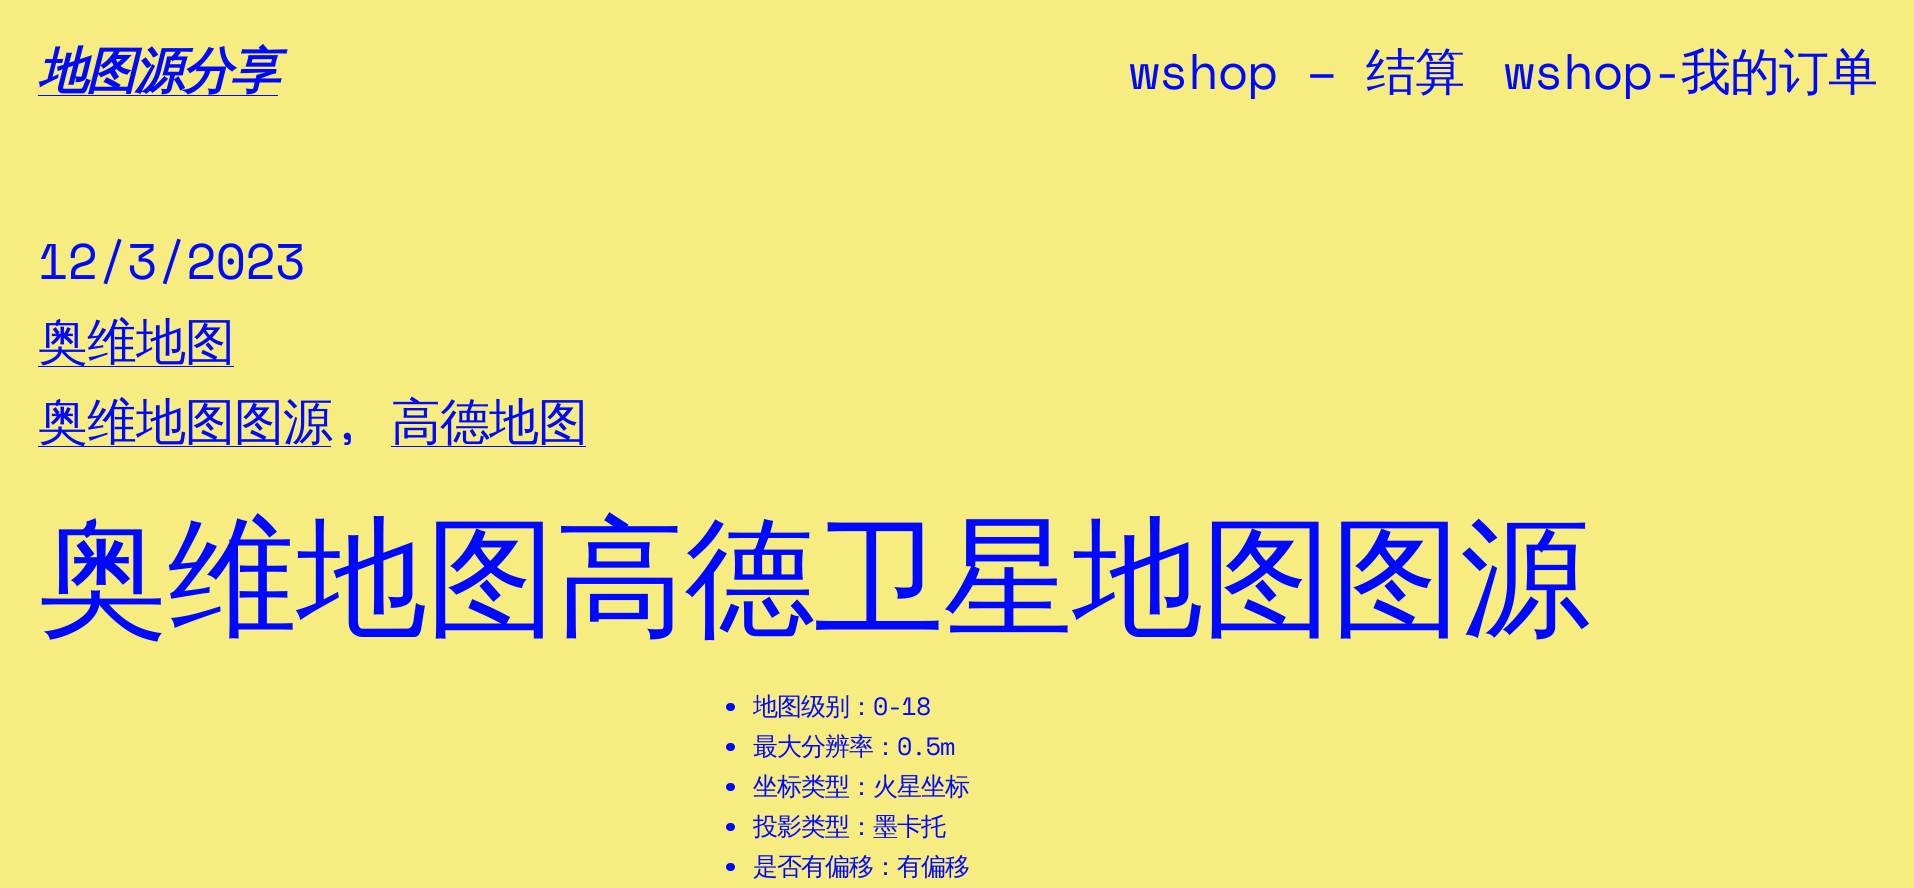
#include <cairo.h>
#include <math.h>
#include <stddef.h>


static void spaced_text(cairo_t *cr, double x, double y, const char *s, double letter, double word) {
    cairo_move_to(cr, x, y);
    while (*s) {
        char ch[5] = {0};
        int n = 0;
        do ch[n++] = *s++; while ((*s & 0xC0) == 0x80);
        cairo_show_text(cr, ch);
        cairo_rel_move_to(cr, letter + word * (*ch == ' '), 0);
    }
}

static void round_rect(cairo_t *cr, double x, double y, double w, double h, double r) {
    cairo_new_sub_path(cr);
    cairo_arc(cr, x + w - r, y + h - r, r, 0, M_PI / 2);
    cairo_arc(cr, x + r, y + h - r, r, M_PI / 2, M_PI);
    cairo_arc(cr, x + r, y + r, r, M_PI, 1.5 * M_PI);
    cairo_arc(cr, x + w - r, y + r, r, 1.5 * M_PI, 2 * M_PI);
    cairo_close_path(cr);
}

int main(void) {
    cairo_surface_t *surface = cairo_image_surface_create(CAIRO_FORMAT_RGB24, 1914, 888);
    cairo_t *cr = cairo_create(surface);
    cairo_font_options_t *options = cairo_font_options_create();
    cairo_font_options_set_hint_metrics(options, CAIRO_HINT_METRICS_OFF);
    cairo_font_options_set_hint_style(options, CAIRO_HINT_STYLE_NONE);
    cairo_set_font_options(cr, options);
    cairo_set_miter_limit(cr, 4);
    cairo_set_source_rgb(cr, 0.965, 0.922, 0.502);
    cairo_paint(cr);
    cairo_select_font_face(cr, "WenQuanYi Zen Hei", CAIRO_FONT_SLANT_ITALIC, CAIRO_FONT_WEIGHT_BOLD);
    cairo_set_font_size(cr, 50);
    cairo_set_source_rgb(cr, 0, 0.039, 1);
    spaced_text(cr, 38, 88, "地图源分享", -2, 0);
    cairo_rectangle(cr, 38, 95, 240, 1);
    cairo_fill(cr);
    cairo_select_font_face(cr, "Space Mono", CAIRO_FONT_SLANT_NORMAL, CAIRO_FONT_WEIGHT_NORMAL);
    spaced_text(cr, 1129, 89, "wshop –", -1, 0);
    cairo_select_font_face(cr, "WenQuanYi Zen Hei Medium", CAIRO_FONT_SLANT_NORMAL, CAIRO_FONT_WEIGHT_NORMAL);
    spaced_text(cr, 1366, 89, "结算", -1, 0);
    cairo_select_font_face(cr, "Space Mono", CAIRO_FONT_SLANT_NORMAL, CAIRO_FONT_WEIGHT_NORMAL);
    spaced_text(cr, 1504, 89, "wshop-", -1, 0);
    cairo_select_font_face(cr, "WenQuanYi Zen Hei Medium", CAIRO_FONT_SLANT_NORMAL, CAIRO_FONT_WEIGHT_NORMAL);
    spaced_text(cr, 1681, 89, "我的订单", -1, 0);
    cairo_select_font_face(cr, "Space Mono", CAIRO_FONT_SLANT_NORMAL, CAIRO_FONT_WEIGHT_NORMAL);
    spaced_text(cr, 38, 279, "12/3/2023", -1, 0);
    cairo_rectangle(cr, 38, 366, 196, 1);
    cairo_fill(cr);
    cairo_select_font_face(cr, "WenQuanYi Zen Hei Medium", CAIRO_FONT_SLANT_NORMAL, CAIRO_FONT_WEIGHT_NORMAL);
    spaced_text(cr, 38, 359, "奥维地图", -1, 0);
    cairo_rectangle(cr, 38, 446, 293, 1);
    cairo_fill(cr);
    spaced_text(cr, 38, 439, "奥维地图图源", -1, 0);
    cairo_select_font_face(cr, "Space Mono", CAIRO_FONT_SLANT_NORMAL, CAIRO_FONT_WEIGHT_NORMAL);
    spaced_text(cr, 332, 439, ",", -1, 0);
    cairo_select_font_face(cr, "WenQuanYi Zen Hei Medium", CAIRO_FONT_SLANT_NORMAL, CAIRO_FONT_WEIGHT_NORMAL);
    spaced_text(cr, 391, 439, "高德地图", -1, 0);
    cairo_rectangle(cr, 391, 446, 195, 1);
    cairo_fill(cr);
    cairo_set_font_size(cr, 130.3);
    spaced_text(cr, 38, 623, "奥维地图高德卫星地图图源", -1, 0);
    round_rect(cr, 726, 703, 9, 8, 4);
    cairo_fill(cr);
    cairo_set_font_size(cr, 25);
    spaced_text(cr, 753, 715, "地图级别：", -1, 0);
    cairo_select_font_face(cr, "Space Mono", CAIRO_FONT_SLANT_NORMAL, CAIRO_FONT_WEIGHT_NORMAL);
    spaced_text(cr, 873, 715, "0-18", -1, 0);
    round_rect(cr, 726, 743, 9, 8, 4);
    cairo_fill(cr);
    cairo_select_font_face(cr, "WenQuanYi Zen Hei Medium", CAIRO_FONT_SLANT_NORMAL, CAIRO_FONT_WEIGHT_NORMAL);
    spaced_text(cr, 753, 755, "最大分辨率：", -1, 0);
    cairo_select_font_face(cr, "Space Mono", CAIRO_FONT_SLANT_NORMAL, CAIRO_FONT_WEIGHT_NORMAL);
    spaced_text(cr, 897, 755, "0.5m", -1, 0);
    round_rect(cr, 726, 783, 9, 8, 4);
    cairo_fill(cr);
    cairo_select_font_face(cr, "WenQuanYi Zen Hei Medium", CAIRO_FONT_SLANT_NORMAL, CAIRO_FONT_WEIGHT_NORMAL);
    spaced_text(cr, 753, 795, "坐标类型：火星坐标", -1, 0);
    round_rect(cr, 726, 823, 9, 8, 4);
    cairo_fill(cr);
    spaced_text(cr, 753, 835, "投影类型：墨卡托", -1, 0);
    round_rect(cr, 726, 863, 9, 8, 4);
    cairo_fill(cr);
    spaced_text(cr, 753, 875, "是否有偏移：有偏移", -1, 0);
    cairo_surface_write_to_png(surface, "page.png");
    cairo_font_options_destroy(options);
    cairo_destroy(cr);
    cairo_surface_destroy(surface);
    return 0;
}
